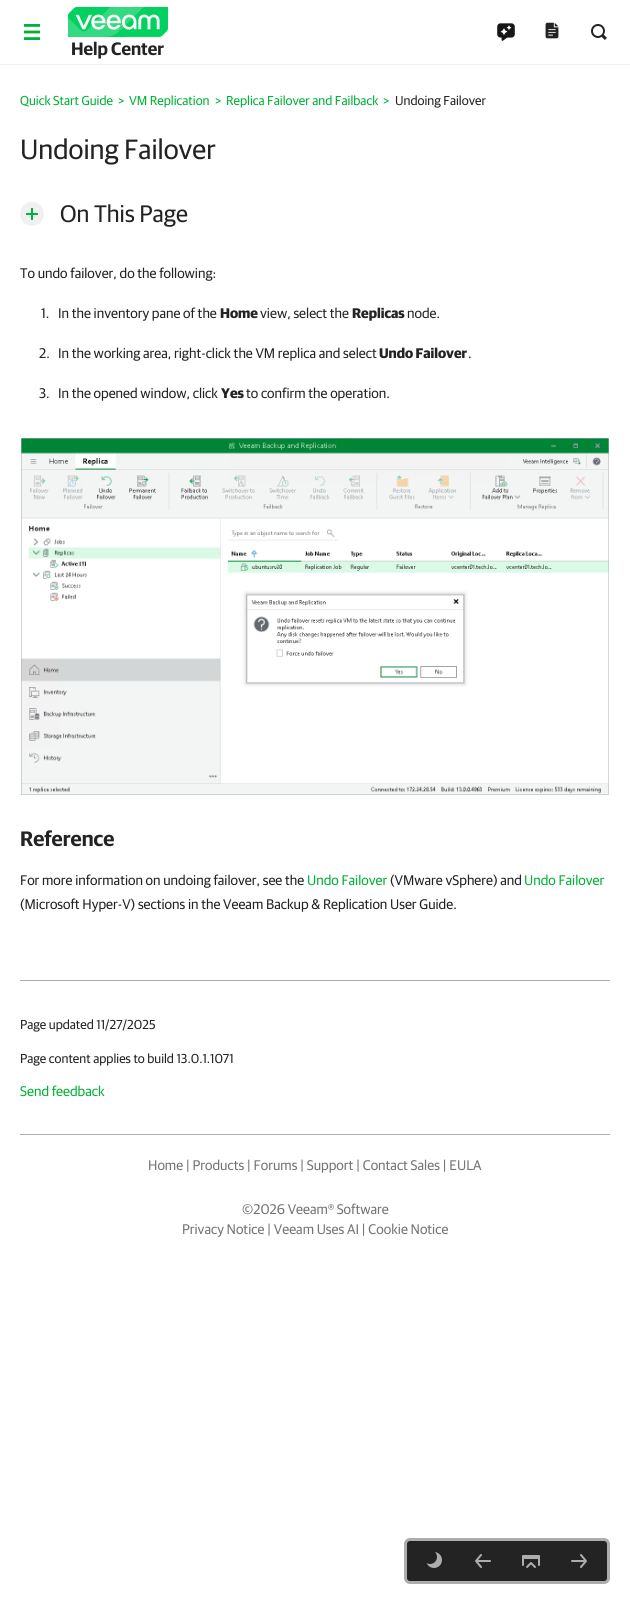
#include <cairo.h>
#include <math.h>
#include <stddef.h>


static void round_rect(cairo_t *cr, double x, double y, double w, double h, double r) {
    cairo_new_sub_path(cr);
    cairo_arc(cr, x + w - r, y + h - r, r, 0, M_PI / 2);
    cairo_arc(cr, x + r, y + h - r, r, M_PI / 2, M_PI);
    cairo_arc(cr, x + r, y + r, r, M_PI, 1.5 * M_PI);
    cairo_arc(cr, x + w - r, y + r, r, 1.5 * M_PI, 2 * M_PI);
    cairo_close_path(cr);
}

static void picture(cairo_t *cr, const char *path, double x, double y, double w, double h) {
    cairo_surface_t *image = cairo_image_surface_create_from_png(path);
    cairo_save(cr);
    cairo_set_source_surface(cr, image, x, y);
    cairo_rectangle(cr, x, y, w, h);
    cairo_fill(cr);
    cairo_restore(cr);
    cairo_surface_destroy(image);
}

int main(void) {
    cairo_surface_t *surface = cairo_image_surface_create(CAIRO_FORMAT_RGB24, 630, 1604);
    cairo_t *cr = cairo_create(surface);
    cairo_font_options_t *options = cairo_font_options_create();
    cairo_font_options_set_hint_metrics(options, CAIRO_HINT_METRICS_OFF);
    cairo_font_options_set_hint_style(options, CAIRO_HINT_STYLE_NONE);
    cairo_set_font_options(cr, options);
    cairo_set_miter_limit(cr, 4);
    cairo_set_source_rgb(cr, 1, 1, 1);
    cairo_paint(cr);
    cairo_set_source_rgb(cr, 0.941, 0.941, 0.941);
    cairo_rectangle(cr, 0, 64, 630, 1);
    cairo_fill(cr);
    picture(cr, "img1.png", 497, 23, 18, 18);
    picture(cr, "img2.png", 545, 22, 14, 17);
    picture(cr, "img3.png", 591, 24, 16, 16);
    picture(cr, "img4.png", 24, 24, 16, 16);
    picture(cr, "img5.png", 68, 7, 100, 30);
    cairo_select_font_face(cr, "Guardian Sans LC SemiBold", CAIRO_FONT_SLANT_NORMAL, CAIRO_FONT_WEIGHT_NORMAL);
    cairo_set_font_size(cr, 18);
    cairo_set_source_rgb(cr, 0.137, 0.137, 0.137);
    cairo_move_to(cr, 71, 55);
    cairo_show_text(cr, "Help Center");
    cairo_select_font_face(cr, "Guardian Sans LC", CAIRO_FONT_SLANT_NORMAL, CAIRO_FONT_WEIGHT_NORMAL);
    cairo_set_font_size(cr, 13);
    cairo_set_source_rgb(cr, 0, 0.702, 0.212);
    cairo_move_to(cr, 20, 105);
    cairo_show_text(cr, "Quick Start Guide");
    cairo_move_to(cr, 118, 105);
    cairo_show_text(cr, ">");
    cairo_move_to(cr, 129, 105);
    cairo_show_text(cr, "VM Replication");
    cairo_move_to(cr, 215, 105);
    cairo_show_text(cr, ">");
    cairo_move_to(cr, 226, 105);
    cairo_show_text(cr, "Replica Failover and Failback");
    cairo_move_to(cr, 383, 105);
    cairo_show_text(cr, ">");
    cairo_set_source_rgb(cr, 0.137, 0.137, 0.137);
    cairo_move_to(cr, 395, 105);
    cairo_show_text(cr, "Undoing Failover");
    cairo_set_font_size(cr, 28);
    cairo_move_to(cr, 20, 159);
    cairo_show_text(cr, "Undoing Failover");
    cairo_set_source_rgb(cr, 0.941, 0.941, 0.941);
    cairo_new_path(cr);
    cairo_arc(cr, 32, 214, 12, 0, 2 * M_PI);
    cairo_fill(cr);
    picture(cr, "img6.png", 26, 208, 12, 12);
    cairo_set_font_size(cr, 24);
    cairo_set_source_rgb(cr, 0.137, 0.137, 0.137);
    cairo_move_to(cr, 60, 222);
    cairo_show_text(cr, "On This Page");
    cairo_set_font_size(cr, 14);
    cairo_move_to(cr, 20, 278);
    cairo_show_text(cr, "To undo failover, do the following:");
    cairo_move_to(cr, 41, 318);
    cairo_show_text(cr, "1.");
    cairo_move_to(cr, 58, 318);
    cairo_show_text(cr, "In the inventory pane of the");
    cairo_select_font_face(cr, "Guardian Sans LC", CAIRO_FONT_SLANT_NORMAL, CAIRO_FONT_WEIGHT_BOLD);
    cairo_move_to(cr, 220, 318);
    cairo_show_text(cr, "Home");
    cairo_select_font_face(cr, "Guardian Sans LC", CAIRO_FONT_SLANT_NORMAL, CAIRO_FONT_WEIGHT_NORMAL);
    cairo_move_to(cr, 260, 318);
    cairo_show_text(cr, "view, select the");
    cairo_select_font_face(cr, "Guardian Sans LC", CAIRO_FONT_SLANT_NORMAL, CAIRO_FONT_WEIGHT_BOLD);
    cairo_move_to(cr, 352, 318);
    cairo_show_text(cr, "Replicas");
    cairo_select_font_face(cr, "Guardian Sans LC", CAIRO_FONT_SLANT_NORMAL, CAIRO_FONT_WEIGHT_NORMAL);
    cairo_move_to(cr, 407, 318);
    cairo_show_text(cr, "node.");
    cairo_move_to(cr, 39, 358);
    cairo_show_text(cr, "2.");
    cairo_move_to(cr, 58, 358);
    cairo_show_text(cr, "In the working area, right-click the VM replica and select");
    cairo_select_font_face(cr, "Guardian Sans LC", CAIRO_FONT_SLANT_NORMAL, CAIRO_FONT_WEIGHT_BOLD);
    cairo_move_to(cr, 379, 358);
    cairo_show_text(cr, "Undo Failover");
    cairo_select_font_face(cr, "Guardian Sans LC", CAIRO_FONT_SLANT_NORMAL, CAIRO_FONT_WEIGHT_NORMAL);
    cairo_move_to(cr, 468, 358);
    cairo_show_text(cr, ".");
    cairo_move_to(cr, 39, 398);
    cairo_show_text(cr, "3.");
    cairo_move_to(cr, 58, 398);
    cairo_show_text(cr, "In the opened window, click");
    cairo_select_font_face(cr, "Guardian Sans LC", CAIRO_FONT_SLANT_NORMAL, CAIRO_FONT_WEIGHT_BOLD);
    cairo_move_to(cr, 221, 398);
    cairo_show_text(cr, "Yes");
    cairo_select_font_face(cr, "Guardian Sans LC", CAIRO_FONT_SLANT_NORMAL, CAIRO_FONT_WEIGHT_NORMAL);
    cairo_move_to(cr, 246, 398);
    cairo_show_text(cr, "to confirm the operation.");
    picture(cr, "img7.png", 21, 438, 588, 357);
    cairo_select_font_face(cr, "Guardian Sans LC SemiBold", CAIRO_FONT_SLANT_NORMAL, CAIRO_FONT_WEIGHT_NORMAL);
    cairo_set_font_size(cr, 21);
    cairo_move_to(cr, 20, 846);
    cairo_show_text(cr, "Reference");
    cairo_select_font_face(cr, "Guardian Sans LC", CAIRO_FONT_SLANT_NORMAL, CAIRO_FONT_WEIGHT_NORMAL);
    cairo_set_font_size(cr, 14);
    cairo_move_to(cr, 20, 885);
    cairo_show_text(cr, "For more information on undoing failover, see the");
    cairo_set_source_rgb(cr, 0, 0.702, 0.212);
    cairo_move_to(cr, 307, 885);
    cairo_show_text(cr, "Undo Failover");
    cairo_set_source_rgb(cr, 0.137, 0.137, 0.137);
    cairo_move_to(cr, 390, 885);
    cairo_show_text(cr, "(VMware vSphere) and");
    cairo_set_source_rgb(cr, 0, 0.702, 0.212);
    cairo_move_to(cr, 524, 885);
    cairo_show_text(cr, "Undo Failover");
    cairo_set_source_rgb(cr, 0.137, 0.137, 0.137);
    cairo_move_to(cr, 20, 909);
    cairo_show_text(cr, "(Microsoft Hyper-V) sections in the Veeam Backup & Replication User Guide.");
    cairo_set_source_rgb(cr, 0.678, 0.675, 0.686);
    cairo_rectangle(cr, 20, 980, 590, 1);
    cairo_fill(cr);
    cairo_set_font_size(cr, 13);
    cairo_set_source_rgb(cr, 0.137, 0.137, 0.137);
    cairo_move_to(cr, 20, 1029);
    cairo_show_text(cr, "Page updated 11/27/2025");
    cairo_move_to(cr, 20, 1063);
    cairo_show_text(cr, "Page content applies to build 13.0.1.1071");
    cairo_set_font_size(cr, 14);
    cairo_set_source_rgb(cr, 0, 0.702, 0.212);
    cairo_move_to(cr, 20, 1096);
    cairo_show_text(cr, "Send feedback");
    cairo_set_source_rgb(cr, 0.678, 0.675, 0.686);
    cairo_rectangle(cr, 20, 1134, 590, 1);
    cairo_fill(cr);
    cairo_set_source_rgb(cr, 0.459, 0.459, 0.459);
    cairo_move_to(cr, 148, 1170);
    cairo_show_text(cr, "Home | Products | Forums | Support | Contact Sales | EULA");
    cairo_move_to(cr, 242, 1214);
    cairo_show_text(cr, "©2026 Veeam® Software");
    cairo_move_to(cr, 182, 1234);
    cairo_show_text(cr, "Privacy Notice | Veeam Uses AI | Cookie Notice");
    cairo_set_source_rgb(cr, 0.137, 0.137, 0.137);
    round_rect(cr, 405.5, 1539.5, 203, 43, 4.5);
    cairo_fill_preserve(cr);
    cairo_set_source_rgb(cr, 0.678, 0.675, 0.686);
    cairo_set_line_width(cr, 3);
    cairo_stroke(cr);
    picture(cr, "img8.png", 426, 1552, 16, 16);
    picture(cr, "img9.png", 475, 1554, 16, 14);
    picture(cr, "img10.png", 522, 1555, 18, 13);
    picture(cr, "img11.png", 571, 1554, 16, 14);
    cairo_surface_write_to_png(surface, "page.png");
    cairo_font_options_destroy(options);
    cairo_destroy(cr);
    cairo_surface_destroy(surface);
    return 0;
}
